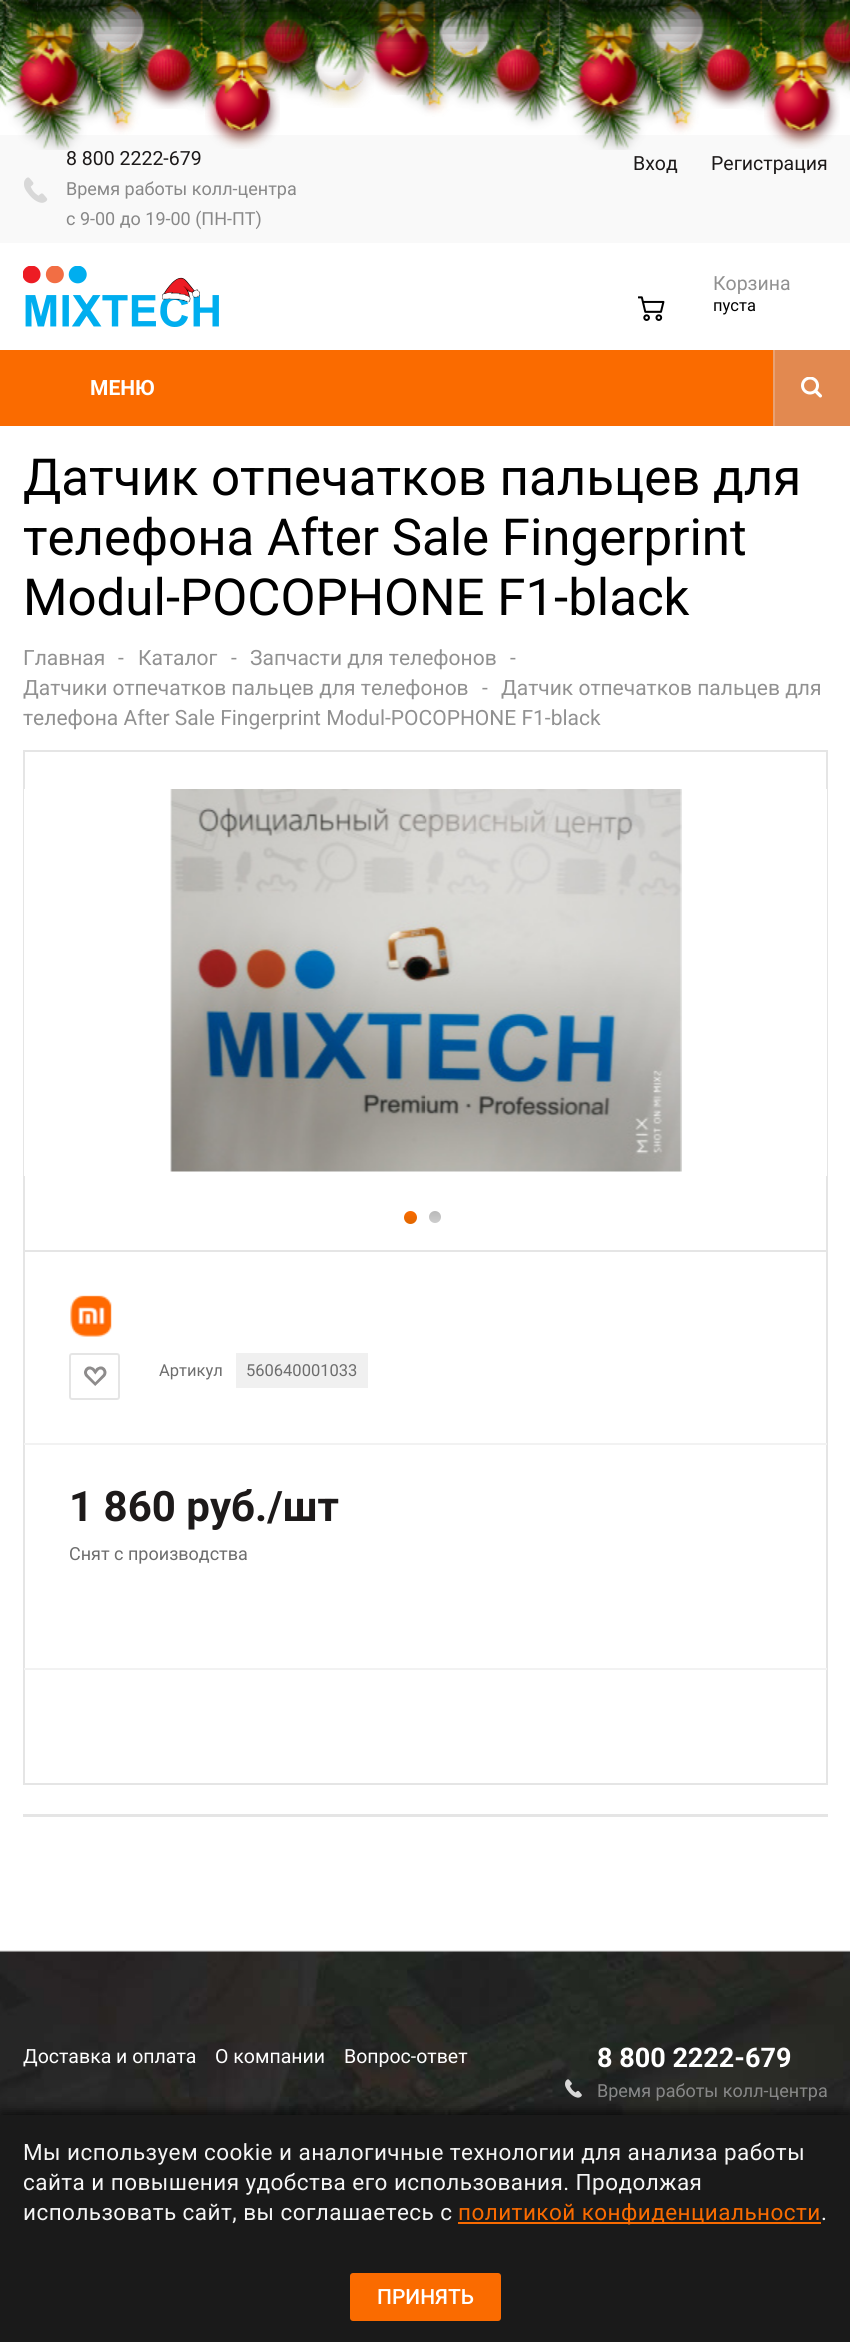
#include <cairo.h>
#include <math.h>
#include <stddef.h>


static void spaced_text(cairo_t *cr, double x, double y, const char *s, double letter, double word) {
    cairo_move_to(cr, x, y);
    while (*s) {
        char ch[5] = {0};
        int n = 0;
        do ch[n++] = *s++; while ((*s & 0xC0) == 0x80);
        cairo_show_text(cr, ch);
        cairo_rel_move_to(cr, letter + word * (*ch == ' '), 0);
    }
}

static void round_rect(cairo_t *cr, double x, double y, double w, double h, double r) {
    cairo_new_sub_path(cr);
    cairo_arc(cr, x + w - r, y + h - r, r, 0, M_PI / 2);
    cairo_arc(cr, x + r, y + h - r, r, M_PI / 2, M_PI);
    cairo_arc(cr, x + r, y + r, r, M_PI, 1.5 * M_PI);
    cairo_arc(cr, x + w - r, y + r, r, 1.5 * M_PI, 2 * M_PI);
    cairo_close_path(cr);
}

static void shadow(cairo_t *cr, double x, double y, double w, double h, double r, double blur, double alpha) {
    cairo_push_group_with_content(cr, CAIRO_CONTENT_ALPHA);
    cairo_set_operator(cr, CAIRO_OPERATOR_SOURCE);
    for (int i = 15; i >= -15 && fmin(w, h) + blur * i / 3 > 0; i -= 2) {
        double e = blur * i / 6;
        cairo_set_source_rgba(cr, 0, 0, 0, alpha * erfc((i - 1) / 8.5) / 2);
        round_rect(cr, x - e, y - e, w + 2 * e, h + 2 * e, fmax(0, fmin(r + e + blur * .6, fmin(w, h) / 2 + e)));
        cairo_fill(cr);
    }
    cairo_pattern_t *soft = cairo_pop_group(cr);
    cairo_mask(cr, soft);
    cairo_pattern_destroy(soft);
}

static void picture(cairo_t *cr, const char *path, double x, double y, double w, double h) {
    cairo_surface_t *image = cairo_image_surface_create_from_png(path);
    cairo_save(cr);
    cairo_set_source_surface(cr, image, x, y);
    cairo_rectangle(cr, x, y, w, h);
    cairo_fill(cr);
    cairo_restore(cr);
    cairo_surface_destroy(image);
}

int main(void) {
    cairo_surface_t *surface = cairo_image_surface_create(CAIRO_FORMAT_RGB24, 850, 2342);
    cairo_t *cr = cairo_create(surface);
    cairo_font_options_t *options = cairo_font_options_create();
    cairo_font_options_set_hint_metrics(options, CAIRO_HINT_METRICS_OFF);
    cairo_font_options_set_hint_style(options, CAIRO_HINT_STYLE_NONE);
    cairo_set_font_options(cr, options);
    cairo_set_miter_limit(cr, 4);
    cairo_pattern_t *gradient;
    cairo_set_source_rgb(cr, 1, 1, 1);
    cairo_paint(cr);
    cairo_set_source_rgb(cr, 0.976, 0.976, 0.976);
    cairo_rectangle(cr, 0, 135, 850, 108);
    cairo_fill(cr);
    picture(cr, "img1.png", 0, 0, 850, 150);
    picture(cr, "img3.png", 10, 0, 78, 123);
    picture(cr, "img2.png", 0, 0, 38, 107);
    picture(cr, "img5.png", 81, 0, 73, 70);
    picture(cr, "img4.png", 38, 0, 91, 40);
    picture(cr, "img6.png", 205, 0, 75, 149);
    picture(cr, "img7.png", 255, 0, 61, 80);
    picture(cr, "img13.png", 306, 9, 68, 99);
    picture(cr, "img8.png", 265, 0, 43, 46);
    picture(cr, "img10.png", 365, 0, 73, 95);
    picture(cr, "img9.png", 307, 0, 76, 75);
    picture(cr, "img11.png", 431, 0, 69, 73);
    picture(cr, "img12.png", 137, 13, 62, 96);
    picture(cr, "img16.png", 488, 15, 61, 95);
    picture(cr, "img14.png", 433, 0, 118, 42);
    picture(cr, "img15.png", 550, 0, 10, 104);
    picture(cr, "img18.png", 569, 0, 78, 123);
    picture(cr, "img17.png", 559, 0, 39, 106);
    picture(cr, "img20.png", 641, 0, 73, 70);
    picture(cr, "img19.png", 596, 0, 92, 40);
    picture(cr, "img21.png", 764, 0, 76, 149);
    picture(cr, "img22.png", 814, 0, 36, 80);
    picture(cr, "img23.png", 697, 13, 62, 96);
    picture(cr, "img24.png", 825, 0, 25, 42);
    cairo_set_source_rgb(cr, 0, 0, 0);
    shadow(cr, 0, -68, 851, 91, 0, 22.5, 0.75);
    picture(cr, "img25.png", 24, 177, 24, 26);
    cairo_select_font_face(cr, "Roboto", CAIRO_FONT_SLANT_NORMAL, CAIRO_FONT_WEIGHT_NORMAL);
    cairo_set_font_size(cr, 19.5);
    cairo_set_source_rgb(cr, 0.114, 0.102, 0.102);
    cairo_move_to(cr, 66, 165);
    cairo_show_text(cr, "8 800 2222-679");
    cairo_set_font_size(cr, 18);
    cairo_set_source_rgb(cr, 0.533, 0.533, 0.533);
    cairo_move_to(cr, 66, 195);
    cairo_show_text(cr, "Время работы колл-центра");
    cairo_move_to(cr, 66, 225);
    cairo_show_text(cr, "с 9-00 до 19-00 (ПН-ПТ)");
    cairo_set_font_size(cr, 19.5);
    cairo_set_source_rgb(cr, 0.114, 0.102, 0.102);
    cairo_move_to(cr, 633, 170);
    cairo_show_text(cr, "Вход");
    cairo_move_to(cr, 711, 170);
    cairo_show_text(cr, "Регистрация");
    picture(cr, "img26.png", 23, 266, 196, 61);
    picture(cr, "img27.png", 638, 296, 27, 25);
    cairo_set_source_rgb(cr, 0.569, 0.569, 0.569);
    cairo_move_to(cr, 713, 290);
    cairo_show_text(cr, "Корзина");
    cairo_set_font_size(cr, 16.5);
    cairo_set_source_rgb(cr, 0, 0, 0);
    cairo_move_to(cr, 713, 311);
    cairo_show_text(cr, "пуста");
    cairo_set_source_rgb(cr, 0.98, 0.42, 0);
    cairo_rectangle(cr, 0, 350, 773, 76);
    cairo_fill(cr);
    cairo_select_font_face(cr, "Roboto", CAIRO_FONT_SLANT_NORMAL, CAIRO_FONT_WEIGHT_BOLD);
    cairo_set_font_size(cr, 21);
    cairo_set_source_rgb(cr, 1, 1, 1);
    cairo_move_to(cr, 90, 395);
    cairo_show_text(cr, "МЕНЮ");
    cairo_set_source_rgb(cr, 0.886, 0.537, 0.314);
    cairo_rectangle(cr, 775, 350, 75, 76);
    cairo_fill(cr);
    cairo_set_source_rgb(cr, 0.91, 0.631, 0.451);
    cairo_rectangle(cr, 773, 350, 2, 76);
    cairo_fill(cr);
    picture(cr, "img28.png", 801, 377, 21, 21);
    cairo_select_font_face(cr, "Roboto", CAIRO_FONT_SLANT_NORMAL, CAIRO_FONT_WEIGHT_NORMAL);
    cairo_set_font_size(cr, 51);
    cairo_set_source_rgb(cr, 0, 0, 0);
    cairo_move_to(cr, 23, 495);
    cairo_show_text(cr, "Датчик отпечатков пальцев для");
    cairo_move_to(cr, 23, 555);
    cairo_show_text(cr, "телефона After Sale Fingerprint");
    cairo_move_to(cr, 23, 615);
    cairo_show_text(cr, "Modul-POCOPHONE F1-black");
    cairo_set_font_size(cr, 21);
    cairo_set_source_rgb(cr, 0.569, 0.569, 0.569);
    cairo_move_to(cr, 23, 665);
    cairo_show_text(cr, "Главная");
    cairo_move_to(cr, 118, 665);
    cairo_show_text(cr, "-");
    cairo_move_to(cr, 138, 665);
    cairo_show_text(cr, "Каталог");
    cairo_move_to(cr, 231, 665);
    cairo_show_text(cr, "-");
    cairo_move_to(cr, 250, 665);
    cairo_show_text(cr, "Запчасти для телефонов");
    cairo_move_to(cr, 510, 665);
    cairo_show_text(cr, "-");
    cairo_move_to(cr, 23, 695);
    cairo_show_text(cr, "Датчики отпечатков пальцев для телефонов");
    cairo_move_to(cr, 482, 695);
    cairo_show_text(cr, "-");
    cairo_move_to(cr, 501, 695);
    cairo_show_text(cr, "Датчик отпечатков пальцев для");
    cairo_move_to(cr, 23, 725);
    cairo_show_text(cr, "телефона After Sale Fingerprint Modul-POCOPHONE F1-black");
    cairo_rectangle(cr, 24, 751, 803, 1033);
    cairo_set_source_rgb(cr, 0.898, 0.898, 0.898);
    cairo_stroke(cr);
    cairo_set_source_rgb(cr, 1, 1, 1);
    cairo_rectangle(cr, 24, 789, 803, 387);
    cairo_fill(cr);
    picture(cr, "img29.png", 170, 789, 512, 383);
    gradient = cairo_pattern_create_linear(410, 1211, 410, 1224);
    cairo_pattern_add_color_stop_rgba(gradient, 0, 0.98, 0.42, 0, 1);
    cairo_pattern_add_color_stop_rgba(gradient, 1, 0.878, 0.404, 0, 1);
    cairo_set_source(cr, gradient);
    cairo_pattern_destroy(gradient);
    cairo_arc(cr, 410.5, 1217.5, 6.5, 0, 2 * M_PI);
    cairo_fill(cr);
    gradient = cairo_pattern_create_linear(435, 1211, 435, 1223);
    cairo_pattern_add_color_stop_rgba(gradient, 0, 0.725, 0.725, 0.725, 1);
    cairo_pattern_add_color_stop_rgba(gradient, 1, 0.804, 0.804, 0.804, 1);
    cairo_set_source(cr, gradient);
    cairo_pattern_destroy(gradient);
    cairo_arc(cr, 435, 1217, 6, 0, 2 * M_PI);
    cairo_fill(cr);
    cairo_set_source_rgb(cr, 0.898, 0.898, 0.898);
    cairo_rectangle(cr, 24, 1250, 803, 2);
    cairo_fill(cr);
    cairo_set_source_rgb(cr, 0.949, 0.949, 0.949);
    cairo_rectangle(cr, 24, 1443, 803, 2);
    cairo_fill(cr);
    picture(cr, "img30.png", 70, 1295, 42, 42);
    round_rect(cr, 70, 1354, 49, 45, 2);
    cairo_set_source_rgb(cr, 0.898, 0.898, 0.898);
    cairo_stroke(cr);
    picture(cr, "img31.png", 84, 1366, 23, 20);
    cairo_set_font_size(cr, 16.5);
    cairo_set_source_rgb(cr, 0.427, 0.427, 0.427);
    cairo_move_to(cr, 159, 1376);
    cairo_show_text(cr, "Артикул");
    cairo_set_source_rgb(cr, 0.941, 0.941, 0.941);
    cairo_rectangle(cr, 236, 1353, 132, 35);
    cairo_fill(cr);
    cairo_set_source_rgb(cr, 0.427, 0.427, 0.427);
    cairo_move_to(cr, 246, 1376);
    cairo_show_text(cr, "560640001033");
    cairo_set_source_rgb(cr, 0.949, 0.949, 0.949);
    cairo_rectangle(cr, 24, 1668, 803, 2);
    cairo_fill(cr);
    cairo_select_font_face(cr, "Roboto", CAIRO_FONT_SLANT_NORMAL, CAIRO_FONT_WEIGHT_BOLD);
    cairo_set_font_size(cr, 42);
    cairo_set_source_rgb(cr, 0.114, 0.102, 0.102);
    cairo_move_to(cr, 69, 1521);
    cairo_show_text(cr, "1 860 руб./шт");
    cairo_select_font_face(cr, "Roboto", CAIRO_FONT_SLANT_NORMAL, CAIRO_FONT_WEIGHT_NORMAL);
    cairo_set_font_size(cr, 18);
    cairo_set_source_rgb(cr, 0.427, 0.427, 0.427);
    cairo_move_to(cr, 69, 1560);
    cairo_show_text(cr, "Снят с производства");
    cairo_set_source_rgb(cr, 0.898, 0.898, 0.898);
    cairo_rectangle(cr, 23, 1814, 805, 3);
    cairo_fill(cr);
    cairo_set_source_rgb(cr, 0.906, 0.906, 0.906);
    cairo_rectangle(cr, 0, 1950, 850, 2);
    cairo_fill(cr);
    picture(cr, "img32.png", 0, 1951, 850, 164);
    cairo_set_font_size(cr, 19.5);
    cairo_set_source_rgb(cr, 1, 1, 1);
    cairo_move_to(cr, 23, 2063);
    cairo_show_text(cr, "Доставка и оплата");
    cairo_move_to(cr, 215, 2063);
    cairo_show_text(cr, "О компании");
    cairo_move_to(cr, 344, 2063);
    cairo_show_text(cr, "Вопрос-ответ");
    picture(cr, "img33.png", 565, 2079, 17, 19);
    cairo_select_font_face(cr, "Roboto", CAIRO_FONT_SLANT_NORMAL, CAIRO_FONT_WEIGHT_BOLD);
    cairo_set_font_size(cr, 27);
    cairo_move_to(cr, 597, 2067);
    cairo_show_text(cr, "8 800 2222-679");
    cairo_select_font_face(cr, "Roboto", CAIRO_FONT_SLANT_NORMAL, CAIRO_FONT_WEIGHT_NORMAL);
    cairo_set_font_size(cr, 18);
    cairo_set_source_rgb(cr, 0.533, 0.533, 0.533);
    cairo_move_to(cr, 597, 2097);
    cairo_show_text(cr, "Время работы колл-центра");
    cairo_set_source_rgb(cr, 0, 0, 0);
    shadow(cr, 0, 2111, 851, 228, 0, 6, 0.7);
    cairo_set_source_rgb(cr, 0.102, 0.102, 0.102);
    cairo_rectangle(cr, 0, 2115, 850, 227);
    cairo_fill(cr);
    cairo_set_font_size(cr, 22.5);
    cairo_set_source_rgb(cr, 0.961, 0.961, 0.961);
    spaced_text(cr, 23, 2160, "Мы используем cookie и аналогичные технологии для анализа работы", 0.45, 0);
    spaced_text(cr, 23, 2190, "сайта и повышения удобства его использования. Продолжая", 0.45, 0);
    spaced_text(cr, 23, 2220, "использовать сайт, вы соглашаетесь с", 0.45, 0);
    cairo_set_source_rgb(cr, 0.98, 0.42, 0);
    cairo_rectangle(cr, 458, 2222, 363, 2);
    cairo_fill(cr);
    spaced_text(cr, 458, 2220, "политикой конфиденциальности", 0.45, 0);
    cairo_set_source_rgb(cr, 0.961, 0.961, 0.961);
    spaced_text(cr, 821, 2220, ".", 0.45, 0);
    cairo_set_source_rgb(cr, 0.98, 0.42, 0);
    round_rect(cr, 350, 2273, 151, 48, 3);
    cairo_fill(cr);
    cairo_select_font_face(cr, "Roboto Medium", CAIRO_FONT_SLANT_NORMAL, CAIRO_FONT_WEIGHT_NORMAL);
    cairo_set_font_size(cr, 21);
    cairo_set_source_rgb(cr, 1, 1, 1);
    cairo_move_to(cr, 377, 2304);
    cairo_show_text(cr, "ПРИНЯТЬ");
    cairo_surface_write_to_png(surface, "page.png");
    cairo_font_options_destroy(options);
    cairo_destroy(cr);
    cairo_surface_destroy(surface);
    return 0;
}
